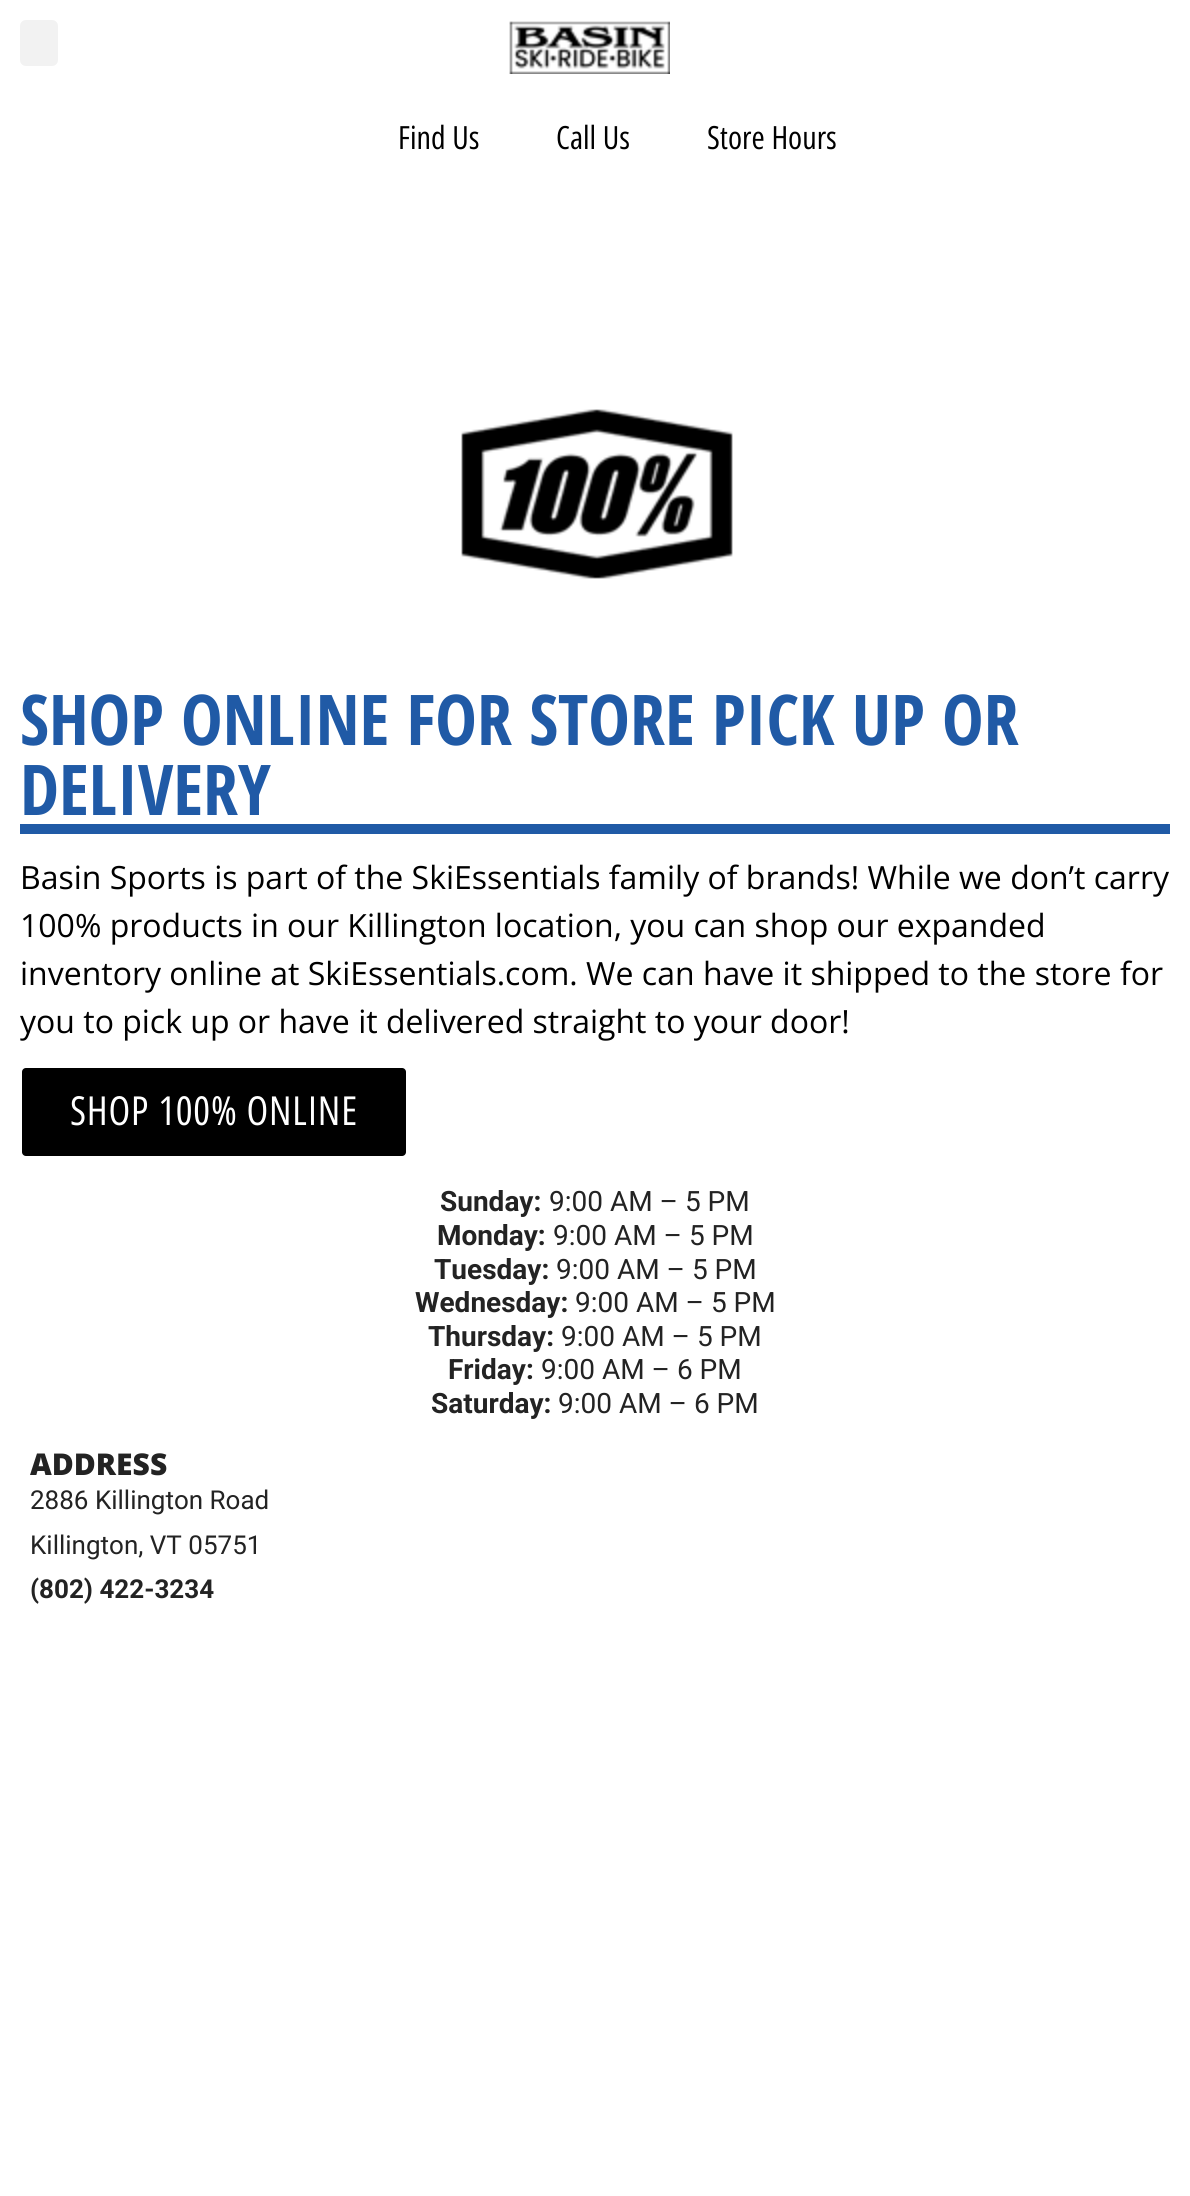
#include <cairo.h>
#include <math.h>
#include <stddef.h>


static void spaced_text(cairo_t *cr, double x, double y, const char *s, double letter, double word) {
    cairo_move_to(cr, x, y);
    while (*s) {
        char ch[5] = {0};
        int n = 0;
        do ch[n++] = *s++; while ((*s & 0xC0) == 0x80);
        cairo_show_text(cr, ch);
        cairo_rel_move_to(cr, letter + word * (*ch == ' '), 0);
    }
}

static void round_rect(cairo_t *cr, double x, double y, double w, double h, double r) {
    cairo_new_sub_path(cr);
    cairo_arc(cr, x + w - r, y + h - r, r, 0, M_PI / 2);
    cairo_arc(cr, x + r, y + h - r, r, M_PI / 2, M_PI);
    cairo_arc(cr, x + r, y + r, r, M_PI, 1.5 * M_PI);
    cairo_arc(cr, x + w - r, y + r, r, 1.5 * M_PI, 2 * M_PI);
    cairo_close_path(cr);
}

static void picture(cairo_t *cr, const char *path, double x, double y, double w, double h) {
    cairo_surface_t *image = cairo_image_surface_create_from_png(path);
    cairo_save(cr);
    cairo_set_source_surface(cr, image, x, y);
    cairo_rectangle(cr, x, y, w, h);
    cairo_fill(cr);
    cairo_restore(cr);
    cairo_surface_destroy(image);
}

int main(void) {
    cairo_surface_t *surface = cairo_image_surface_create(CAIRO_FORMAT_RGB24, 1190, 2196);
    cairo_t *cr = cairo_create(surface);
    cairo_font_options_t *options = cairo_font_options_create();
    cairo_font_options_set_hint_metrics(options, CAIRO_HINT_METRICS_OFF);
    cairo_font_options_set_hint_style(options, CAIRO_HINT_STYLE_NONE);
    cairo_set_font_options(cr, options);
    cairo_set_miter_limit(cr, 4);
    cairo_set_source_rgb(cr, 1, 1, 1);
    cairo_paint(cr);
    cairo_set_source_rgb(cr, 0.949, 0.949, 0.949);
    round_rect(cr, 20, 20, 38, 46, 6);
    cairo_fill(cr);
    picture(cr, "img1.png", 509, 21, 161, 53);
    cairo_select_font_face(cr, "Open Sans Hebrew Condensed", CAIRO_FONT_SLANT_NORMAL, CAIRO_FONT_WEIGHT_NORMAL);
    cairo_set_font_size(cr, 32);
    cairo_set_source_rgb(cr, 0, 0, 0);
    cairo_move_to(cr, 398, 149);
    cairo_show_text(cr, "Find Us");
    cairo_move_to(cr, 556, 149);
    cairo_show_text(cr, "Call Us");
    cairo_move_to(cr, 707, 149);
    cairo_show_text(cr, "Store Hours");
    picture(cr, "img2.png", 461, 409, 272, 170);
    cairo_set_source_rgb(cr, 0.125, 0.353, 0.651);
    cairo_rectangle(cr, 20, 824, 1150, 10);
    cairo_fill(cr);
    cairo_select_font_face(cr, "Open Sans Hebrew Condensed", CAIRO_FONT_SLANT_NORMAL, CAIRO_FONT_WEIGHT_BOLD);
    cairo_set_font_size(cr, 70);
    cairo_move_to(cr, 20, 745);
    cairo_show_text(cr, "SHOP ONLINE FOR STORE PICK UP OR");
    cairo_move_to(cr, 20, 815);
    cairo_show_text(cr, "DELIVERY");
    cairo_select_font_face(cr, "Open Sans", CAIRO_FONT_SLANT_NORMAL, CAIRO_FONT_WEIGHT_NORMAL);
    cairo_set_font_size(cr, 32);
    cairo_set_source_rgb(cr, 0, 0, 0);
    cairo_move_to(cr, 20, 889);
    cairo_show_text(cr, "Basin Sports is part of the SkiEssentials family of brands! While we don’t carry");
    cairo_move_to(cr, 20, 937);
    cairo_show_text(cr, "100% products in our Killington location, you can shop our expanded");
    cairo_move_to(cr, 20, 985);
    cairo_show_text(cr, "inventory online at SkiEssentials.com. We can have it shipped to the store for");
    cairo_move_to(cr, 20, 1033);
    cairo_show_text(cr, "you to pick up or have it delivered straight to your door!");
    round_rect(cr, 21, 1067, 386, 90, 5);
    cairo_fill_preserve(cr);
    cairo_set_source_rgb(cr, 1, 1, 1);
    cairo_stroke(cr);
    cairo_select_font_face(cr, "Open Sans Hebrew Condensed", CAIRO_FONT_SLANT_NORMAL, CAIRO_FONT_WEIGHT_NORMAL);
    cairo_set_font_size(cr, 40);
    spaced_text(cr, 70, 1125, "SHOP 100% ONLINE", 0.75, 0);
    cairo_select_font_face(cr, "Roboto", CAIRO_FONT_SLANT_NORMAL, CAIRO_FONT_WEIGHT_BOLD);
    cairo_set_font_size(cr, 28);
    cairo_set_source_rgb(cr, 0.137, 0.137, 0.137);
    cairo_move_to(cr, 440, 1211);
    cairo_show_text(cr, "Sunday:");
    cairo_select_font_face(cr, "Roboto", CAIRO_FONT_SLANT_NORMAL, CAIRO_FONT_WEIGHT_NORMAL);
    cairo_move_to(cr, 549, 1211);
    cairo_show_text(cr, "9:00 AM – 5 PM");
    cairo_select_font_face(cr, "Roboto", CAIRO_FONT_SLANT_NORMAL, CAIRO_FONT_WEIGHT_BOLD);
    cairo_move_to(cr, 437, 1245);
    cairo_show_text(cr, "Monday:");
    cairo_select_font_face(cr, "Roboto", CAIRO_FONT_SLANT_NORMAL, CAIRO_FONT_WEIGHT_NORMAL);
    cairo_move_to(cr, 553, 1245);
    cairo_show_text(cr, "9:00 AM – 5 PM");
    cairo_select_font_face(cr, "Roboto", CAIRO_FONT_SLANT_NORMAL, CAIRO_FONT_WEIGHT_BOLD);
    cairo_move_to(cr, 434, 1279);
    cairo_show_text(cr, "Tuesday:");
    cairo_select_font_face(cr, "Roboto", CAIRO_FONT_SLANT_NORMAL, CAIRO_FONT_WEIGHT_NORMAL);
    cairo_move_to(cr, 556, 1279);
    cairo_show_text(cr, "9:00 AM – 5 PM");
    cairo_select_font_face(cr, "Roboto", CAIRO_FONT_SLANT_NORMAL, CAIRO_FONT_WEIGHT_BOLD);
    cairo_move_to(cr, 415, 1312);
    cairo_show_text(cr, "Wednesday:");
    cairo_select_font_face(cr, "Roboto", CAIRO_FONT_SLANT_NORMAL, CAIRO_FONT_WEIGHT_NORMAL);
    cairo_move_to(cr, 575, 1312);
    cairo_show_text(cr, "9:00 AM – 5 PM");
    cairo_select_font_face(cr, "Roboto", CAIRO_FONT_SLANT_NORMAL, CAIRO_FONT_WEIGHT_BOLD);
    cairo_move_to(cr, 428, 1346);
    cairo_show_text(cr, "Thursday:");
    cairo_select_font_face(cr, "Roboto", CAIRO_FONT_SLANT_NORMAL, CAIRO_FONT_WEIGHT_NORMAL);
    cairo_move_to(cr, 561, 1346);
    cairo_show_text(cr, "9:00 AM – 5 PM");
    cairo_select_font_face(cr, "Roboto", CAIRO_FONT_SLANT_NORMAL, CAIRO_FONT_WEIGHT_BOLD);
    cairo_move_to(cr, 448, 1379);
    cairo_show_text(cr, "Friday:");
    cairo_select_font_face(cr, "Roboto", CAIRO_FONT_SLANT_NORMAL, CAIRO_FONT_WEIGHT_NORMAL);
    cairo_move_to(cr, 541, 1379);
    cairo_show_text(cr, "9:00 AM – 6 PM");
    cairo_select_font_face(cr, "Roboto", CAIRO_FONT_SLANT_NORMAL, CAIRO_FONT_WEIGHT_BOLD);
    cairo_move_to(cr, 431, 1413);
    cairo_show_text(cr, "Saturday:");
    cairo_select_font_face(cr, "Roboto", CAIRO_FONT_SLANT_NORMAL, CAIRO_FONT_WEIGHT_NORMAL);
    cairo_move_to(cr, 558, 1413);
    cairo_show_text(cr, "9:00 AM – 6 PM");
    cairo_select_font_face(cr, "Open Sans ExtraBold", CAIRO_FONT_SLANT_NORMAL, CAIRO_FONT_WEIGHT_NORMAL);
    cairo_set_font_size(cr, 30);
    cairo_move_to(cr, 30, 1475);
    cairo_show_text(cr, "ADDRESS");
    cairo_select_font_face(cr, "Roboto", CAIRO_FONT_SLANT_NORMAL, CAIRO_FONT_WEIGHT_NORMAL);
    cairo_set_font_size(cr, 26);
    cairo_move_to(cr, 30, 1509);
    cairo_show_text(cr, "2886 Killington Road");
    cairo_move_to(cr, 30, 1554);
    cairo_show_text(cr, "Killington, VT 05751");
    cairo_select_font_face(cr, "Roboto", CAIRO_FONT_SLANT_NORMAL, CAIRO_FONT_WEIGHT_BOLD);
    cairo_move_to(cr, 30, 1598);
    cairo_show_text(cr, "(802) 422-3234");
    cairo_surface_write_to_png(surface, "page.png");
    cairo_font_options_destroy(options);
    cairo_destroy(cr);
    cairo_surface_destroy(surface);
    return 0;
}
